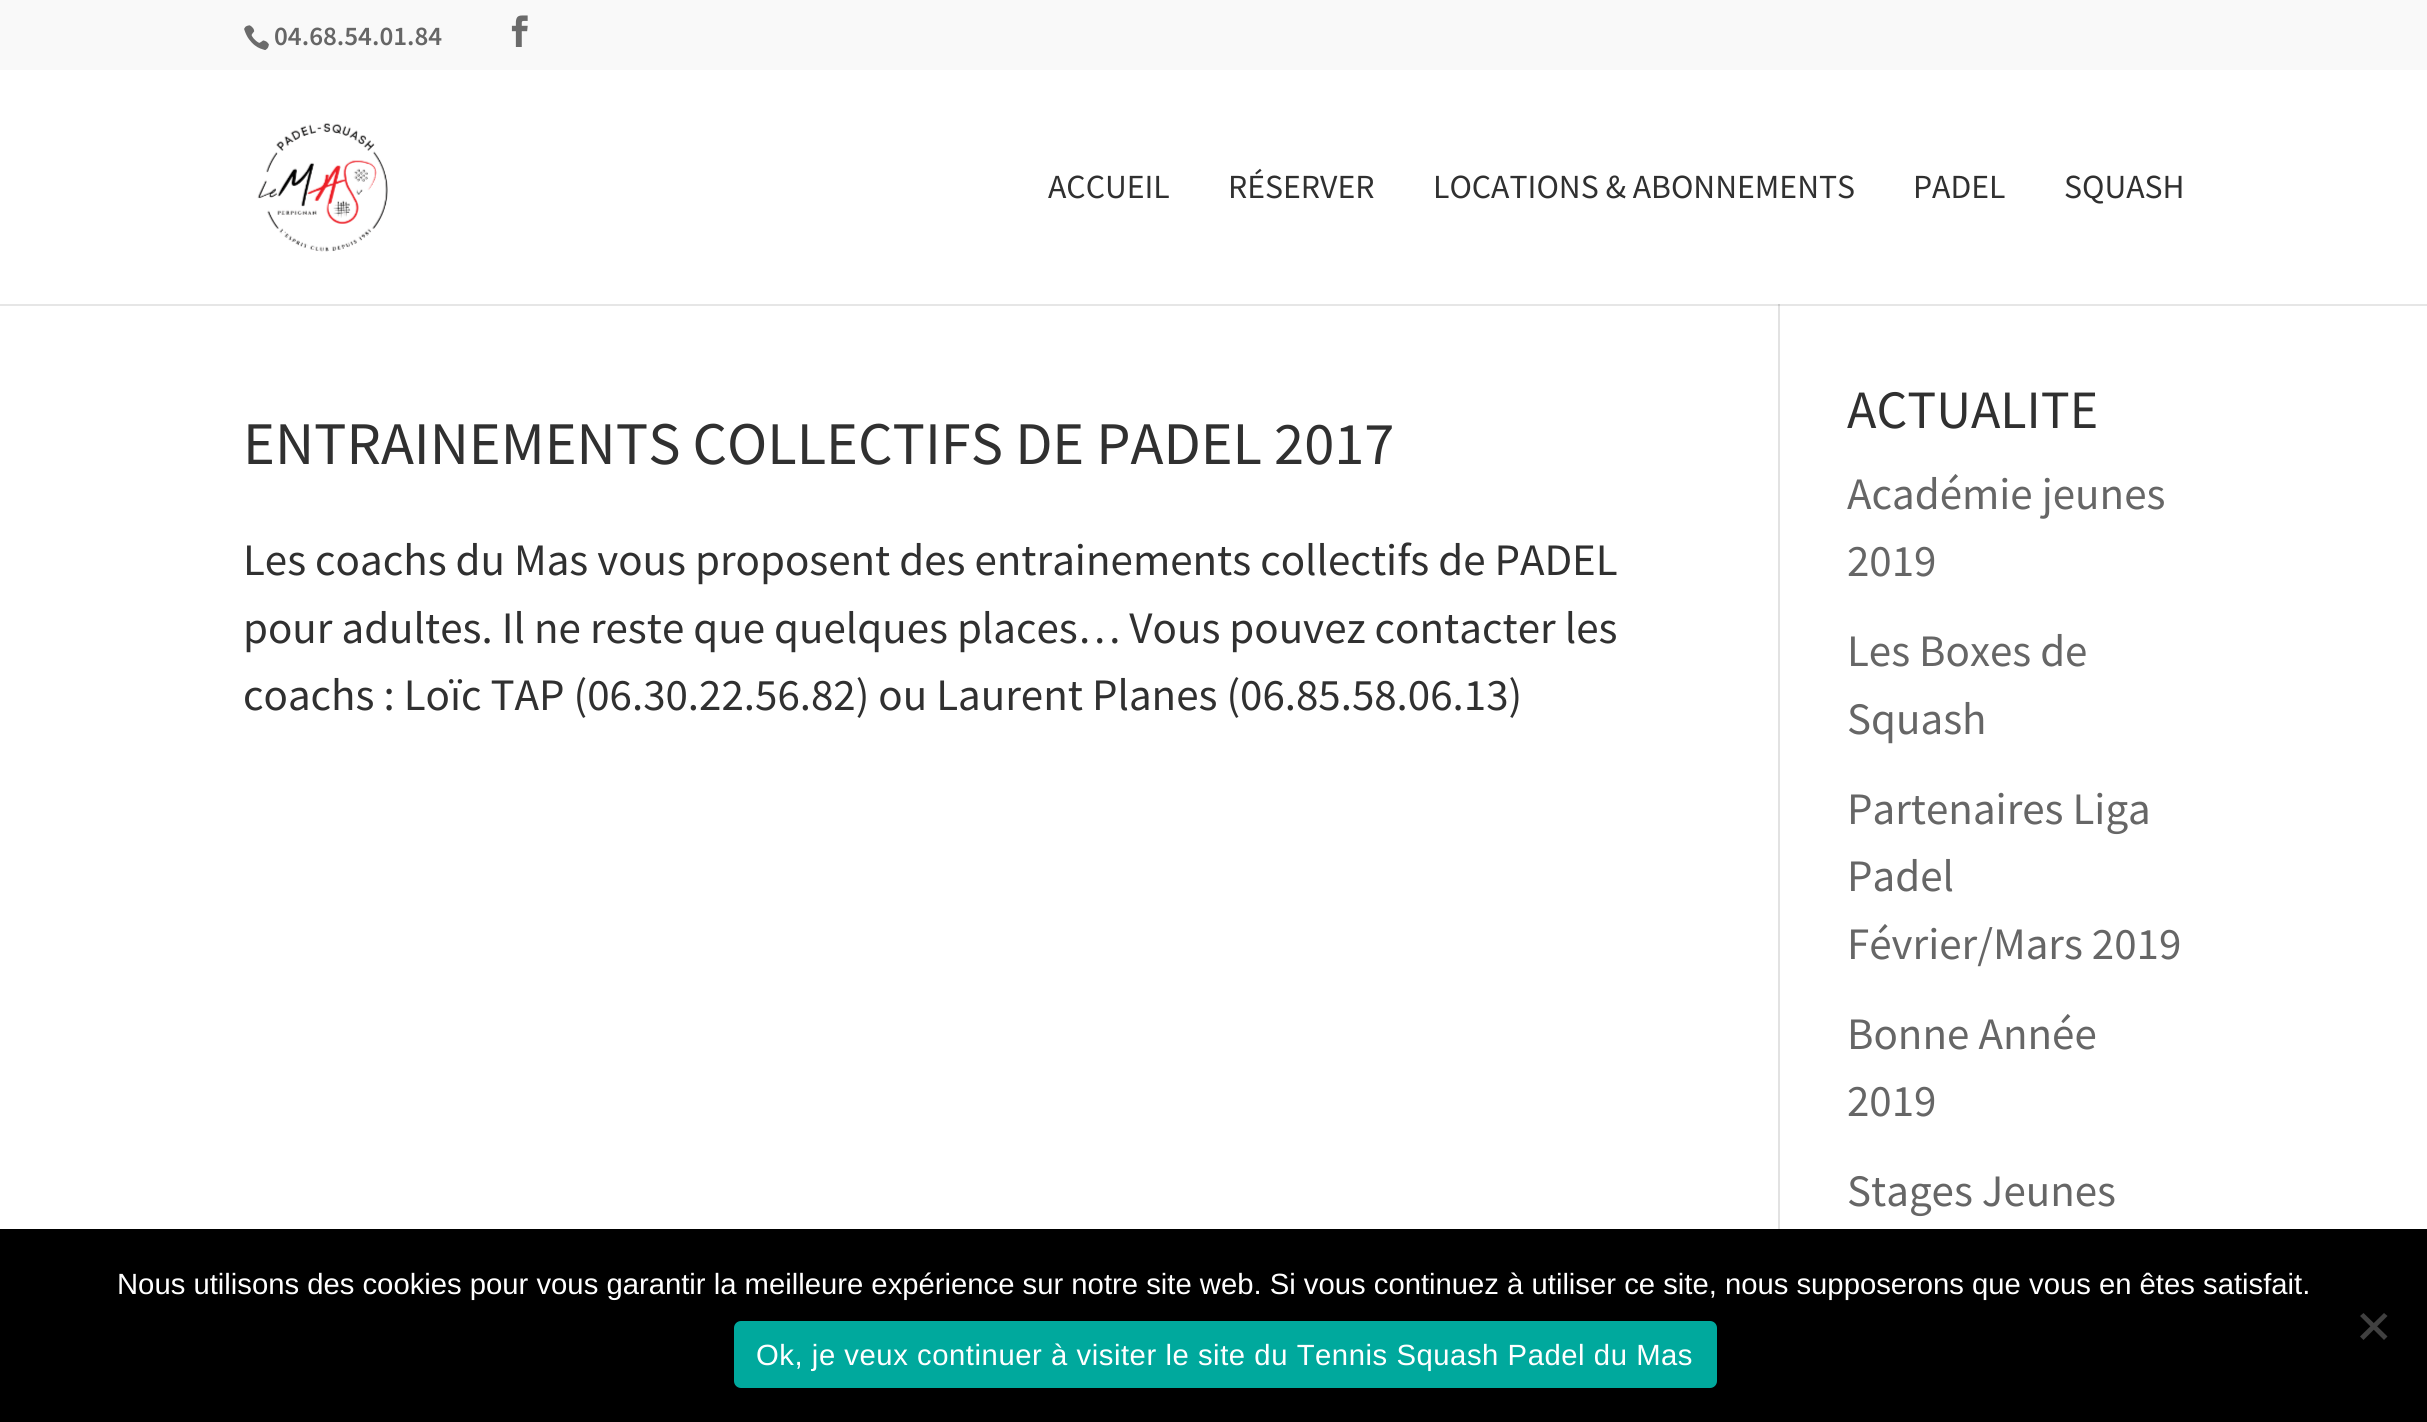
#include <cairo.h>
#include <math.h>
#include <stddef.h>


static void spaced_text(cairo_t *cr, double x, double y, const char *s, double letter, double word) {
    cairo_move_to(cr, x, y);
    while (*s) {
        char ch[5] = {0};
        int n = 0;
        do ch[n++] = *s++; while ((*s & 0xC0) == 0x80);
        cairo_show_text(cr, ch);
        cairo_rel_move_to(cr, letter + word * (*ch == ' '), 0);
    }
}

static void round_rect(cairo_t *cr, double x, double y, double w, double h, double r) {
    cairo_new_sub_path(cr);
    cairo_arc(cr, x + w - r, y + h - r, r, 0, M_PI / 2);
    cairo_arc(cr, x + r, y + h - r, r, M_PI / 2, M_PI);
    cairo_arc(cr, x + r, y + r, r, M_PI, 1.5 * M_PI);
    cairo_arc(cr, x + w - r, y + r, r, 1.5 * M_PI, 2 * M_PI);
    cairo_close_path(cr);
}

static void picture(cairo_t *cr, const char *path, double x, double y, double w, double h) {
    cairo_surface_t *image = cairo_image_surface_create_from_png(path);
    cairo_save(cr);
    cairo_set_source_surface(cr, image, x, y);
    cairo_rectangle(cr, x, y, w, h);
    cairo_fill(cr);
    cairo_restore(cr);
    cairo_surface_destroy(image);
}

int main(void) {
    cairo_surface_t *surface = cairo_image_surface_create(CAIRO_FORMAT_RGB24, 2427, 1422);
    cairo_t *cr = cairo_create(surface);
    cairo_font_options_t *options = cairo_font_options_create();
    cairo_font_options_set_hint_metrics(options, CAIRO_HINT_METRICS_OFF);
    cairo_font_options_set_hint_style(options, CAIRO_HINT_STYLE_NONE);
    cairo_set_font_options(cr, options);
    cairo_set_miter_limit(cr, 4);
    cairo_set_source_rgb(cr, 1, 1, 1);
    cairo_paint(cr);
    cairo_set_source_rgb(cr, 0.976, 0.976, 0.976);
    cairo_rectangle(cr, 0, 0, 2427, 70);
    cairo_fill(cr);
    picture(cr, "img1.png", 244, 25, 25, 25);
    cairo_select_font_face(cr, "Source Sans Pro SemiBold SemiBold", CAIRO_FONT_SLANT_NORMAL, CAIRO_FONT_WEIGHT_NORMAL);
    cairo_set_font_size(cr, 27);
    cairo_set_source_rgb(cr, 0.4, 0.4, 0.4);
    cairo_move_to(cr, 274, 45);
    cairo_show_text(cr, "04.68.54.01.84");
    picture(cr, "img2.png", 511, 15, 17, 32);
    cairo_set_source_rgb(cr, 0.886, 0.886, 0.886);
    cairo_rectangle(cr, 1778, 304, 2, 925);
    cairo_fill(cr);
    cairo_set_source_rgba(cr, 0, 0, 0, 0.1);
    cairo_new_path(cr);
    cairo_move_to(cr, 0, 304);
    cairo_line_to(cr, 0, 306);
    cairo_line_to(cr, 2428, 306);
    cairo_line_to(cr, 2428, 72);
    cairo_line_to(cr, 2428, 304);
    cairo_close_path(cr);
    cairo_fill(cr);
    picture(cr, "img3.png", 257, 123, 131, 129);
    cairo_select_font_face(cr, "Source Sans Pro", CAIRO_FONT_SLANT_NORMAL, CAIRO_FONT_WEIGHT_NORMAL);
    cairo_set_font_size(cr, 33.75);
    cairo_set_source_rgb(cr, 0.188, 0.188, 0.188);
    cairo_move_to(cr, 1048, 198);
    cairo_show_text(cr, "ACCUEIL");
    cairo_move_to(cr, 1228, 198);
    cairo_show_text(cr, "RÉSERVER");
    cairo_move_to(cr, 1433, 198);
    cairo_show_text(cr, "LOCATIONS & ABONNEMENTS");
    cairo_move_to(cr, 1913, 198);
    cairo_show_text(cr, "PADEL");
    cairo_move_to(cr, 2064, 198);
    cairo_show_text(cr, "SQUASH");
    cairo_set_font_size(cr, 60.5);
    cairo_move_to(cr, 243, 464);
    cairo_show_text(cr, "ENTRAINEMENTS COLLECTIFS DE PADEL 2017");
    cairo_set_font_size(cr, 45);
    cairo_move_to(cr, 243, 575);
    cairo_show_text(cr, "Les coachs du Mas vous proposent des entrainements collectifs de PADEL");
    cairo_move_to(cr, 243, 643);
    cairo_show_text(cr, "pour adultes. Il ne reste que quelques places… Vous pouvez contacter les");
    cairo_move_to(cr, 243, 710);
    cairo_show_text(cr, "coachs : Loïc TAP (06.30.22.56.82) ou Laurent Planes (06.85.58.06.13)");
    cairo_set_font_size(cr, 54);
    cairo_move_to(cr, 1847, 428);
    cairo_show_text(cr, "ACTUALITE");
    cairo_set_font_size(cr, 45);
    cairo_set_source_rgb(cr, 0.4, 0.4, 0.4);
    cairo_move_to(cr, 1847, 509);
    cairo_show_text(cr, "Académie jeunes");
    cairo_move_to(cr, 1847, 576);
    cairo_show_text(cr, "2019");
    cairo_move_to(cr, 1847, 666);
    cairo_show_text(cr, "Les Boxes de");
    cairo_move_to(cr, 1847, 734);
    cairo_show_text(cr, "Squash");
    cairo_move_to(cr, 1847, 824);
    cairo_show_text(cr, "Partenaires Liga");
    cairo_move_to(cr, 1847, 891);
    cairo_show_text(cr, "Padel");
    cairo_move_to(cr, 1847, 959);
    cairo_show_text(cr, "Février/Mars 2019");
    cairo_move_to(cr, 1847, 1049);
    cairo_show_text(cr, "Bonne Année");
    cairo_move_to(cr, 1847, 1116);
    cairo_show_text(cr, "2019");
    cairo_move_to(cr, 1847, 1206);
    cairo_show_text(cr, "Stages Jeunes");
    cairo_set_source_rgb(cr, 0, 0, 0);
    cairo_rectangle(cr, 0, 1229, 2427, 193);
    cairo_fill(cr);
    cairo_select_font_face(cr, "Liberation Sans", CAIRO_FONT_SLANT_NORMAL, CAIRO_FONT_WEIGHT_NORMAL);
    cairo_set_font_size(cr, 29.25);
    cairo_set_source_rgb(cr, 1, 1, 1);
    cairo_move_to(cr, 117, 1294);
    cairo_show_text(cr, "Nous utilisons des cookies pour vous garantir la meilleure expérience sur notre site web. Si vous continuez à utiliser ce site, nous supposerons que vous en êtes satisfait.");
    cairo_set_source_rgb(cr, 0.251, 0.251, 0.251);
    cairo_new_path(cr);
    cairo_move_to(cr, 2384, 1313);
    cairo_line_to(cr, 2387.5, 1316);
    cairo_line_to(cr, 2363.5, 1340);
    cairo_line_to(cr, 2360, 1336.5);
    cairo_close_path(cr);
    cairo_fill(cr);
    cairo_new_path(cr);
    cairo_move_to(cr, 2360, 1316);
    cairo_line_to(cr, 2363.5, 1313);
    cairo_line_to(cr, 2387.5, 1336.5);
    cairo_line_to(cr, 2384, 1340);
    cairo_close_path(cr);
    cairo_fill(cr);
    cairo_set_source_rgb(cr, 0, 0.663, 0.616);
    round_rect(cr, 734, 1321, 983, 67, 7);
    cairo_fill(cr);
    cairo_set_source_rgb(cr, 1, 1, 1);
    spaced_text(cr, 756, 1365, "Ok, je veux continuer à visiter le site du Tennis Squash Padel du Mas", 0.55, 0);
    cairo_surface_write_to_png(surface, "page.png");
    cairo_font_options_destroy(options);
    cairo_destroy(cr);
    cairo_surface_destroy(surface);
    return 0;
}
